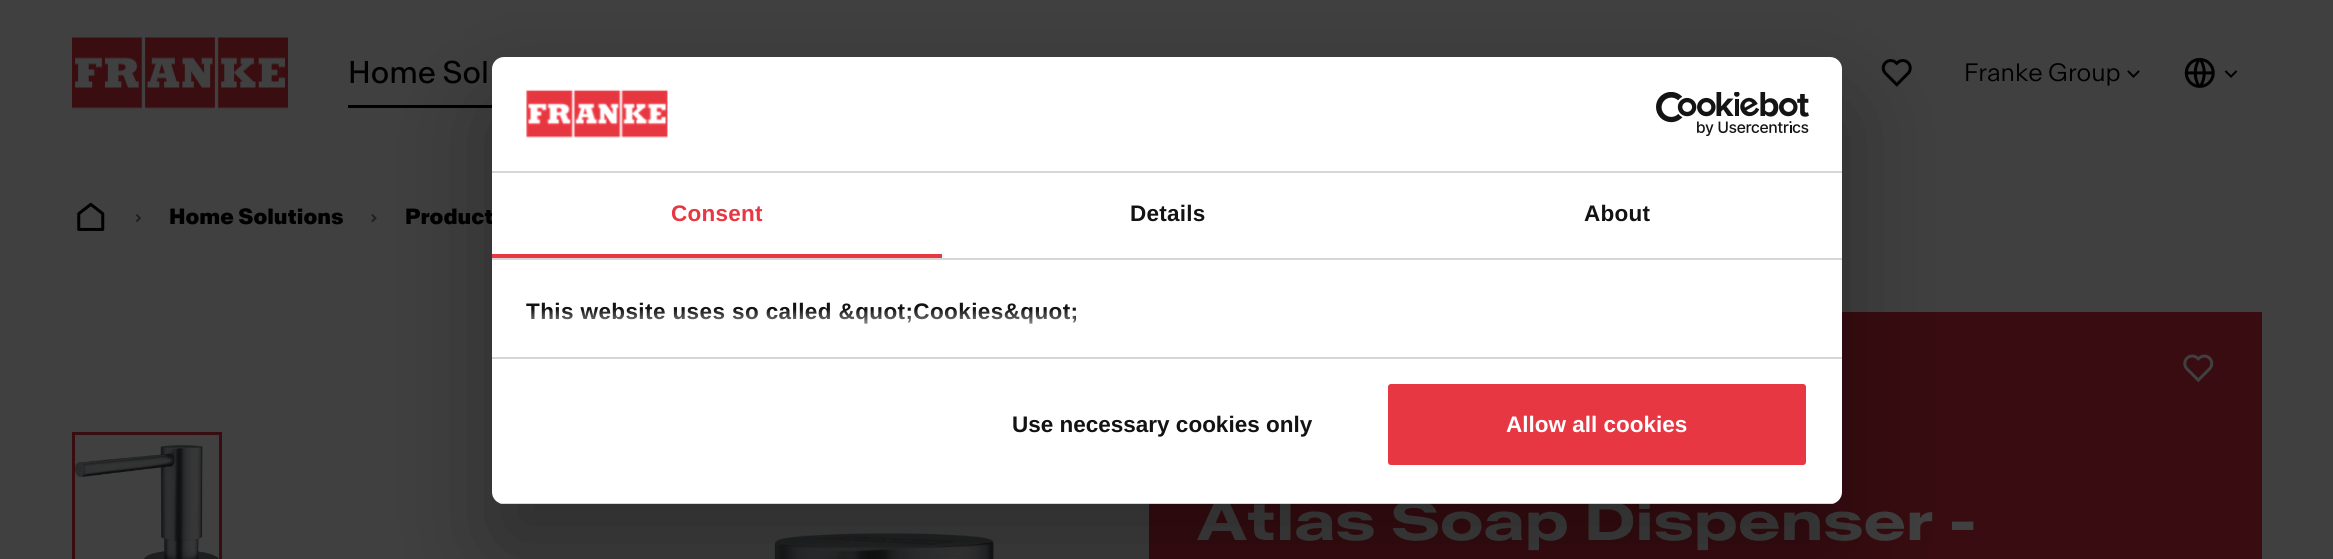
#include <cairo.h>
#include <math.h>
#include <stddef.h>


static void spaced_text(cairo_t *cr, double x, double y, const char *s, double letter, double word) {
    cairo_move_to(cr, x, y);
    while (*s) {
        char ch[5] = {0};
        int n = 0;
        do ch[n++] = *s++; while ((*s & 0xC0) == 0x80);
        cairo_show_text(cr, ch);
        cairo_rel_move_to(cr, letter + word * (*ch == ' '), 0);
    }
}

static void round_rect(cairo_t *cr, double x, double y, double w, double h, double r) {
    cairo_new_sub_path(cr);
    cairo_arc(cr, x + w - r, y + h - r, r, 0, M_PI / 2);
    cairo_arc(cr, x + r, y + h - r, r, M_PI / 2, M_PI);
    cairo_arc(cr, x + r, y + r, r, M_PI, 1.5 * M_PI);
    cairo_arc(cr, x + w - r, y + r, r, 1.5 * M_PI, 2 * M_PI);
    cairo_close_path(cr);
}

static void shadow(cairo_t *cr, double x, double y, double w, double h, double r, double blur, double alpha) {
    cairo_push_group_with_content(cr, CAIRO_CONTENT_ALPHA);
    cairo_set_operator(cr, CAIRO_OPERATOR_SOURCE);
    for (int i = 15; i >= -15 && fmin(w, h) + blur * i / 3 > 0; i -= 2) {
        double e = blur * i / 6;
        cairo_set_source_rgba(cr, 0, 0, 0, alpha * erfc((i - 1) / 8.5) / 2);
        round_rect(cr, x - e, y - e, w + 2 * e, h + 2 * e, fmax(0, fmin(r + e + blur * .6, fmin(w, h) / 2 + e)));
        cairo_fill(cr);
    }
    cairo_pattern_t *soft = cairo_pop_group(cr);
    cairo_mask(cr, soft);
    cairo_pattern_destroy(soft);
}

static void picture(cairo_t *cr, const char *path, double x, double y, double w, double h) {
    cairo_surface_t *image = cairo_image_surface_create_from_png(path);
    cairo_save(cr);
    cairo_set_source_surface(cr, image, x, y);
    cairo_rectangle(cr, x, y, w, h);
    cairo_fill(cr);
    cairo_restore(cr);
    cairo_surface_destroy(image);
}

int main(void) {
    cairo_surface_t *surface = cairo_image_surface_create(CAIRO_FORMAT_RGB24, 2333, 559);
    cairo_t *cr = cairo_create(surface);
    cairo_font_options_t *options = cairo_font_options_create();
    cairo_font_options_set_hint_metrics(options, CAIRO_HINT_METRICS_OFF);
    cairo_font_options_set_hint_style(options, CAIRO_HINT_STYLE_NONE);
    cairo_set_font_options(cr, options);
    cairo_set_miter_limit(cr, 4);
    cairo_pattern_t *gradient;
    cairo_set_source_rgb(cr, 0.251, 0.251, 0.251);
    cairo_paint(cr);
    picture(cr, "img1.png", 72, 37, 216, 72);
    cairo_select_font_face(cr, "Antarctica", CAIRO_FONT_SLANT_NORMAL, CAIRO_FONT_WEIGHT_NORMAL);
    cairo_set_font_size(cr, 30);
    cairo_set_source_rgb(cr, 0, 0, 0);
    cairo_move_to(cr, 348, 83);
    cairo_show_text(cr, "Home Sol");
    cairo_rectangle(cr, 348, 105, 144, 3);
    cairo_fill(cr);
    picture(cr, "img2.png", 1881, 59, 31, 28);
    cairo_select_font_face(cr, "Antarctica Light", CAIRO_FONT_SLANT_NORMAL, CAIRO_FONT_WEIGHT_NORMAL);
    cairo_set_font_size(cr, 24);
    cairo_move_to(cr, 1964, 81);
    cairo_show_text(cr, "Franke Group");
    picture(cr, "img3.png", 2127, 70, 13, 8);
    picture(cr, "img4.png", 2184, 57, 31, 31);
    picture(cr, "img5.png", 2224, 70, 14, 8);
    picture(cr, "img6.png", 77, 202, 28, 29);
    picture(cr, "img7.png", 135, 214, 7, 9);
    cairo_select_font_face(cr, "Antarctica ExtraBold", CAIRO_FONT_SLANT_NORMAL, CAIRO_FONT_WEIGHT_NORMAL);
    cairo_set_font_size(cr, 21);
    cairo_move_to(cr, 169, 224);
    cairo_show_text(cr, "Home Solutions");
    picture(cr, "img8.png", 371, 214, 6, 9);
    cairo_move_to(cr, 405, 224);
    cairo_show_text(cr, "Product");
    cairo_rectangle(cr, 73.5, 433.5, 147, 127);
    cairo_set_source_rgb(cr, 0.22, 0.047, 0.063);
    cairo_set_line_width(cr, 3);
    cairo_stroke(cr);
    picture(cr, "img9.png", 75, 445, 144, 114);
    picture(cr, "img10.png", 774, 533, 221, 26);
    cairo_rectangle(cr, 1149, 312, 1113, 247);
    cairo_fill(cr);
    picture(cr, "img11.png", 2183, 354, 31, 29);
    cairo_select_font_face(cr, "Antarctica", CAIRO_FONT_SLANT_NORMAL, CAIRO_FONT_WEIGHT_BOLD);
    cairo_set_font_size(cr, 52.5);
    cairo_set_source_rgb(cr, 0.251, 0.251, 0.251);
    cairo_move_to(cr, 1197, 540);
    cairo_show_text(cr, "Atlas Soap Dispenser -");
    cairo_set_source_rgb(cr, 0, 0, 0);
    shadow(cr, 492, 105, 1350, 447, 12, 51, 0.3);
    cairo_set_source_rgb(cr, 1, 1, 1);
    round_rect(cr, 492, 57, 1350, 447, 12);
    cairo_fill(cr);
    cairo_set_source_rgb(cr, 0.839, 0.839, 0.839);
    cairo_rectangle(cr, 492, 171, 1350, 2);
    cairo_fill(cr);
    picture(cr, "img12.png", 526, 89, 142, 49);
    picture(cr, "img13.png", 1656, 92, 153, 45);
    cairo_rectangle(cr, 492, 258, 1350, 2);
    cairo_fill(cr);
    cairo_set_source_rgb(cr, 0.906, 0.216, 0.263);
    cairo_rectangle(cr, 492, 254, 450, 4);
    cairo_fill(cr);
    cairo_select_font_face(cr, "Liberation Sans", CAIRO_FONT_SLANT_NORMAL, CAIRO_FONT_WEIGHT_BOLD);
    cairo_set_font_size(cr, 22.5);
    spaced_text(cr, 671, 221, "Consent", 0.25, 0);
    cairo_set_source_rgb(cr, 0.078, 0.078, 0.078);
    spaced_text(cr, 1130, 221, "Details", 0.25, 0);
    spaced_text(cr, 1584, 221, "About", 0.25, 0);
    cairo_set_source_rgb(cr, 0.839, 0.839, 0.839);
    cairo_rectangle(cr, 492, 357, 1350, 2);
    cairo_fill(cr);
    cairo_set_source_rgb(cr, 0.078, 0.078, 0.078);
    spaced_text(cr, 526, 319, "This website uses so called &quot;Cookies&quot;", 0.4, 0);
    gradient = cairo_pattern_create_linear(1152, 357, 1152, 309);
    cairo_pattern_add_color_stop_rgba(gradient, 0, 1, 1, 1, 1);
    cairo_pattern_add_color_stop_rgba(gradient, 0.5, 1, 1, 1, 0.8);
    cairo_pattern_add_color_stop_rgba(gradient, 1, 1, 1, 1, 0);
    cairo_set_source(cr, gradient);
    cairo_pattern_destroy(gradient);
    cairo_rectangle(cr, 531, 310, 544, 14);
    cairo_fill(cr);
    cairo_save(cr);
    round_rect(cr, 492, 57, 1350, 447, 12);
    cairo_clip(cr);
    cairo_set_source_rgb(cr, 0.839, 0.839, 0.839);
    cairo_rectangle(cr, 492, 503, 1350, 1);
    cairo_fill(cr);
    cairo_restore(cr);
    cairo_set_source_rgb(cr, 0.078, 0.078, 0.078);
    cairo_move_to(cr, 1012, 432);
    cairo_show_text(cr, "Use necessary cookies only");
    cairo_set_source_rgb(cr, 0.906, 0.216, 0.263);
    round_rect(cr, 1386.5, 382.5, 421, 84, 4.5);
    cairo_fill_preserve(cr);
    cairo_set_source_rgb(cr, 1, 1, 1);
    cairo_stroke(cr);
    cairo_move_to(cr, 1506, 432);
    cairo_show_text(cr, "Allow all cookies");
    cairo_surface_write_to_png(surface, "page.png");
    cairo_font_options_destroy(options);
    cairo_destroy(cr);
    cairo_surface_destroy(surface);
    return 0;
}
